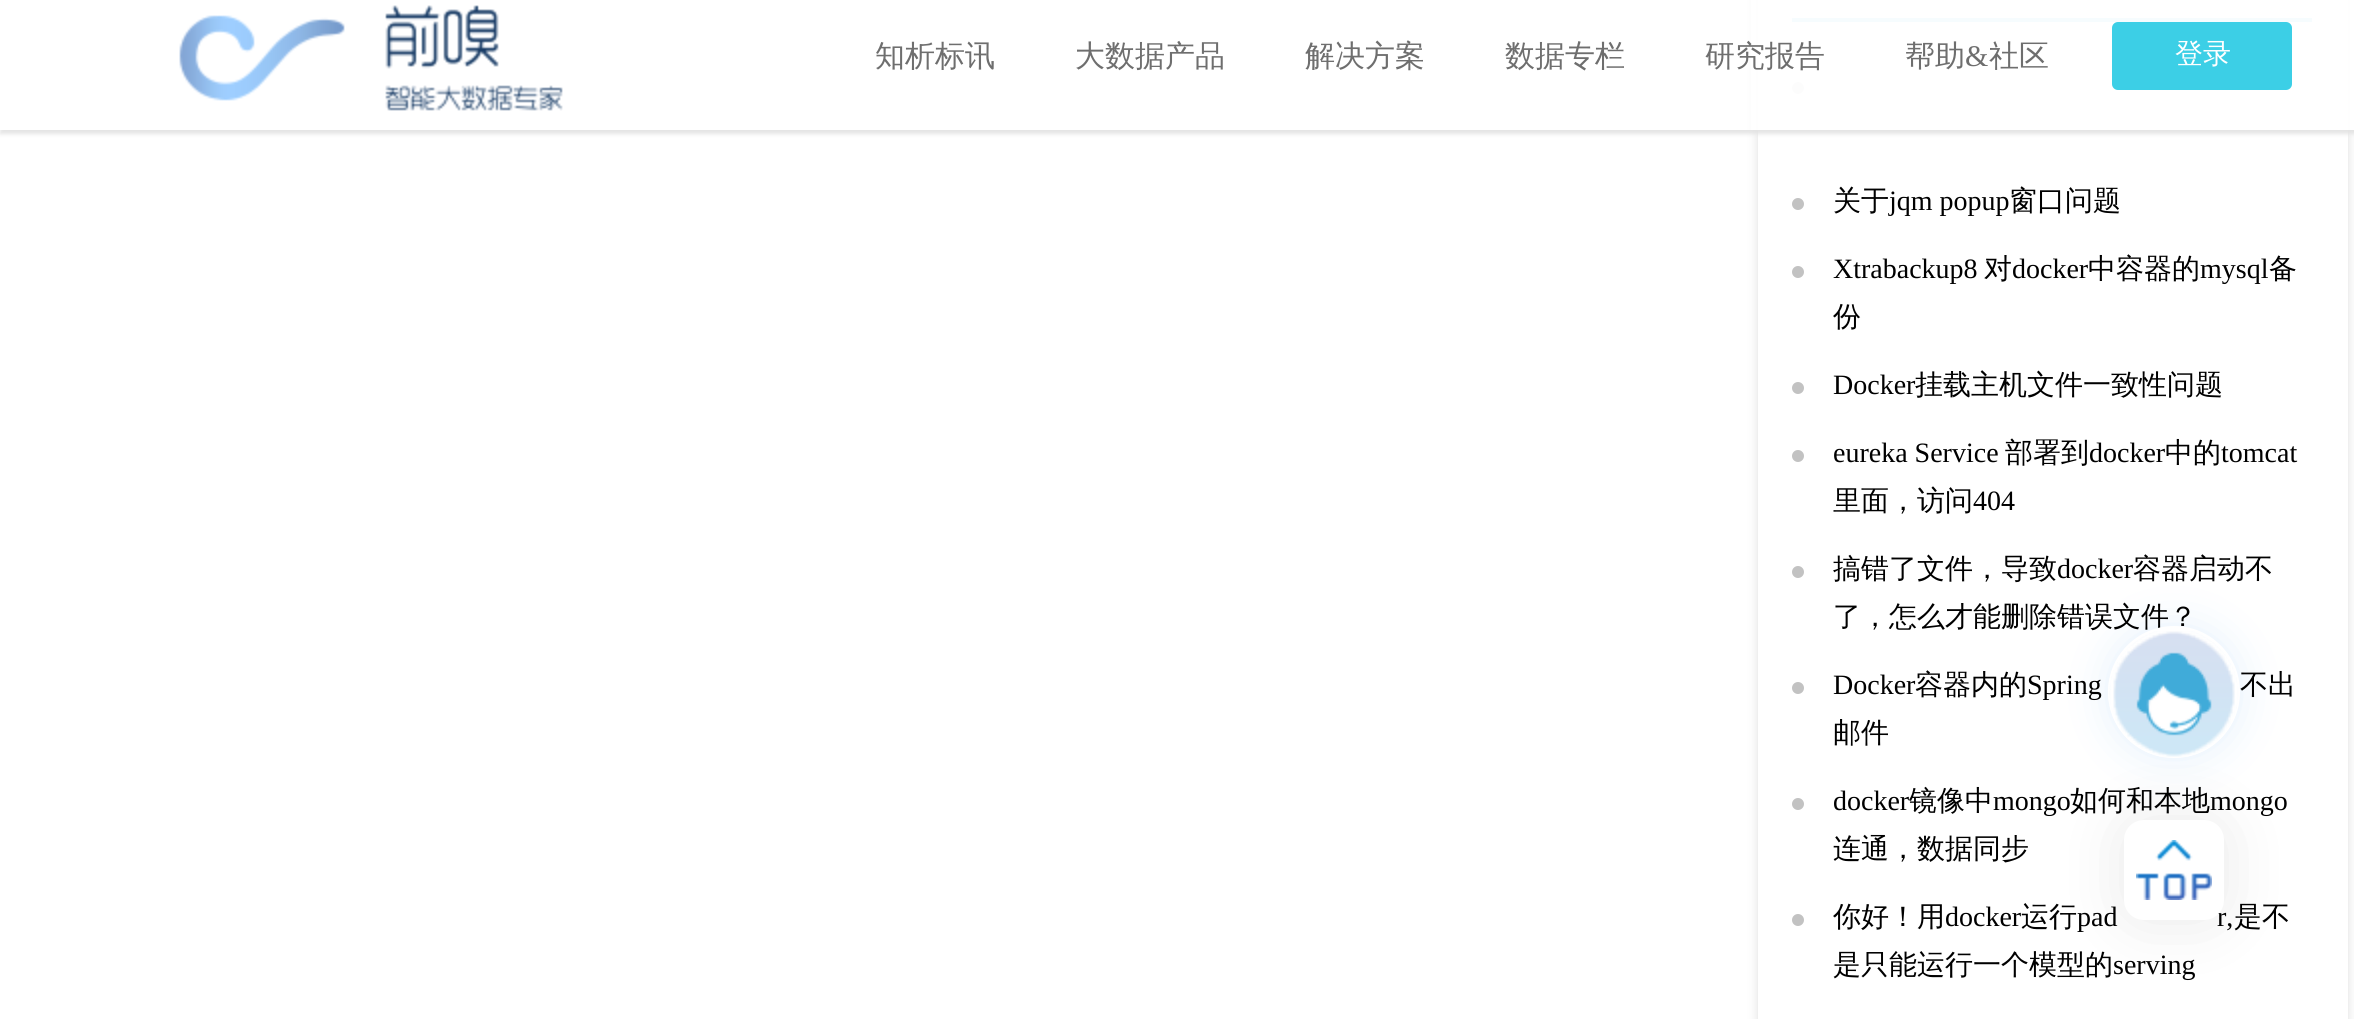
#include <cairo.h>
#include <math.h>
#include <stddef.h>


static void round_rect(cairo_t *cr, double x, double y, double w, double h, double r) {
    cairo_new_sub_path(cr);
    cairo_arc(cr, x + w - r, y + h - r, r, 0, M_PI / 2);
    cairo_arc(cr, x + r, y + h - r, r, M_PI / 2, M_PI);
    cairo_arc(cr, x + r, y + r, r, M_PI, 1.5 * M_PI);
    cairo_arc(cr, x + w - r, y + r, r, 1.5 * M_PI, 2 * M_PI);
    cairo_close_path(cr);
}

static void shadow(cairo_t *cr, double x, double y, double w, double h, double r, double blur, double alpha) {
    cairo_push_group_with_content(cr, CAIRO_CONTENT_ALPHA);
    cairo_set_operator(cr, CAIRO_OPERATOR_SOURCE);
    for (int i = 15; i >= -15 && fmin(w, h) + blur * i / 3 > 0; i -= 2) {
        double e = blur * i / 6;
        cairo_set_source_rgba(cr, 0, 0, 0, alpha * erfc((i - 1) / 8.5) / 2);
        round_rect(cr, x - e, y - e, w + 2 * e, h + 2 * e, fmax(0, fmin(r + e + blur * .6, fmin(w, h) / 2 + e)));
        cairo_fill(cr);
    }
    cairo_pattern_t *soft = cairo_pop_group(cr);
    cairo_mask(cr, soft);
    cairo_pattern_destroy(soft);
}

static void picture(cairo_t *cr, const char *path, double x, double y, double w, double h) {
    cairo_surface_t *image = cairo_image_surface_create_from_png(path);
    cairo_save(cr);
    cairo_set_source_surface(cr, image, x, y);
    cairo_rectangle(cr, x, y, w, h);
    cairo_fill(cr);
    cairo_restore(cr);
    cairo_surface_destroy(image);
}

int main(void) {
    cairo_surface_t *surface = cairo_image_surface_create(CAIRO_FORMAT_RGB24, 2354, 1019);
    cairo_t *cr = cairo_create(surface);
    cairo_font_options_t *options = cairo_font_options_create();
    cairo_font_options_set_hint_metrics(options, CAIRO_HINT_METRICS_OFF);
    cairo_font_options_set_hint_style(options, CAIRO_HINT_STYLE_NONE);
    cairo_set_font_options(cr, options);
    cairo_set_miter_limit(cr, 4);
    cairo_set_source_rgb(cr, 1, 1, 1);
    cairo_paint(cr);
    cairo_save(cr);
    cairo_set_fill_rule(cr, CAIRO_FILL_RULE_EVEN_ODD);
    cairo_new_path(cr);
    cairo_move_to(cr, 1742, 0);
    cairo_line_to(cr, 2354, 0);
    cairo_line_to(cr, 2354, 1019);
    cairo_line_to(cr, 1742, 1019);
    cairo_close_path(cr);
    cairo_move_to(cr, 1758, -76);
    cairo_line_to(cr, 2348, -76);
    cairo_line_to(cr, 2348, 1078);
    cairo_line_to(cr, 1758, 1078);
    cairo_close_path(cr);
    cairo_clip(cr);
    cairo_set_source_rgb(cr, 0.871, 0.871, 0.871);
    shadow(cr, 1758, -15, 590, 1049, 0, 5, 1);
    cairo_restore(cr);
    cairo_set_source_rgb(cr, 0.224, 0.757, 0.918);
    cairo_rectangle(cr, 1792, 18, 520, 4);
    cairo_fill(cr);
    cairo_set_source_rgb(cr, 0.761, 0.761, 0.761);
    cairo_arc(cr, 1798, 88, 6, 0, 2 * M_PI);
    cairo_fill(cr);
    cairo_save(cr);
    cairo_rectangle(cr, 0, 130, 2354, 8);
    cairo_clip(cr);
    cairo_set_source_rgb(cr, 0.89, 0.89, 0.89);
    shadow(cr, 0, 4, 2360, 130, 0, 2, 0.95);
    cairo_restore(cr);
    cairo_set_source_rgba(cr, 1, 1, 1, 0.95);
    cairo_rectangle(cr, 1751, 0, 603, 130);
    cairo_fill(cr);
    picture(cr, "img1.png", 179, 5, 384, 106);
    cairo_select_font_face(cr, "WenQuanYi Zen Hei Medium", CAIRO_FONT_SLANT_NORMAL, CAIRO_FONT_WEIGHT_NORMAL);
    cairo_set_font_size(cr, 30);
    cairo_set_source_rgb(cr, 0.431, 0.431, 0.431);
    cairo_move_to(cr, 875, 66);
    cairo_show_text(cr, "知析标讯");
    cairo_move_to(cr, 1075, 66);
    cairo_show_text(cr, "大数据产品");
    cairo_move_to(cr, 1305, 66);
    cairo_show_text(cr, "解决方案");
    cairo_move_to(cr, 1505, 66);
    cairo_show_text(cr, "数据专栏");
    cairo_move_to(cr, 1705, 66);
    cairo_show_text(cr, "研究报告");
    cairo_move_to(cr, 1905, 66);
    cairo_show_text(cr, "帮助");
    cairo_select_font_face(cr, "Liberation Serif", CAIRO_FONT_SLANT_NORMAL, CAIRO_FONT_WEIGHT_NORMAL);
    cairo_move_to(cr, 1965, 66);
    cairo_show_text(cr, "&");
    cairo_select_font_face(cr, "WenQuanYi Zen Hei Medium", CAIRO_FONT_SLANT_NORMAL, CAIRO_FONT_WEIGHT_NORMAL);
    cairo_move_to(cr, 1989, 66);
    cairo_show_text(cr, "社区");
    cairo_set_source_rgba(cr, 0.2, 0.804, 0.898, 0.95);
    round_rect(cr, 2112, 22, 180, 68, 6);
    cairo_fill(cr);
    cairo_set_font_size(cr, 28);
    cairo_set_source_rgb(cr, 1, 1, 1);
    cairo_move_to(cr, 2175, 63);
    cairo_show_text(cr, "登录");
    cairo_set_source_rgb(cr, 0.902, 0.949, 0.992);
    shadow(cr, 2108, 626, 132, 132, 66, 22, 1);
    cairo_set_source_rgb(cr, 0, 0, 0);
    cairo_move_to(cr, 1833, 626);
    cairo_show_text(cr, "了，怎么才能删除错误文件？");
    cairo_set_source_rgb(cr, 1, 1, 1);
    cairo_new_path(cr);
    cairo_arc(cr, 2174, 692, 66, 0, 2 * M_PI);
    cairo_fill(cr);
    picture(cr, "img2.png", 2108, 631, 131, 126);
    cairo_set_source_rgb(cr, 0.914, 0.914, 0.914);
    shadow(cr, 2124, 820, 100, 100, 20, 30, 1);
    cairo_select_font_face(cr, "Liberation Serif", CAIRO_FONT_SLANT_NORMAL, CAIRO_FONT_WEIGHT_NORMAL);
    cairo_set_source_rgb(cr, 0, 0, 0);
    cairo_move_to(cr, 2217, 926);
    cairo_show_text(cr, "r,");
    cairo_set_source_rgb(cr, 1, 1, 1);
    round_rect(cr, 2124, 820, 100, 100, 20);
    cairo_fill(cr);
    picture(cr, "img3.png", 2136, 840, 76, 60);
    cairo_set_source_rgb(cr, 0.761, 0.761, 0.761);
    cairo_arc(cr, 1798, 204, 6, 0, 2 * M_PI);
    cairo_fill(cr);
    cairo_select_font_face(cr, "WenQuanYi Zen Hei Medium", CAIRO_FONT_SLANT_NORMAL, CAIRO_FONT_WEIGHT_NORMAL);
    cairo_set_source_rgb(cr, 0, 0, 0);
    cairo_move_to(cr, 1833, 210);
    cairo_show_text(cr, "关于");
    cairo_select_font_face(cr, "Liberation Serif", CAIRO_FONT_SLANT_NORMAL, CAIRO_FONT_WEIGHT_NORMAL);
    cairo_move_to(cr, 1889, 210);
    cairo_show_text(cr, "jqm popup");
    cairo_select_font_face(cr, "WenQuanYi Zen Hei Medium", CAIRO_FONT_SLANT_NORMAL, CAIRO_FONT_WEIGHT_NORMAL);
    cairo_move_to(cr, 2009, 210);
    cairo_show_text(cr, "窗口问题");
    cairo_set_source_rgb(cr, 0.761, 0.761, 0.761);
    cairo_new_path(cr);
    cairo_arc(cr, 1798, 272, 6, 0, 2 * M_PI);
    cairo_fill(cr);
    cairo_select_font_face(cr, "Liberation Serif", CAIRO_FONT_SLANT_NORMAL, CAIRO_FONT_WEIGHT_NORMAL);
    cairo_set_source_rgb(cr, 0, 0, 0);
    cairo_move_to(cr, 1833, 278);
    cairo_show_text(cr, "Xtrabackup8");
    cairo_select_font_face(cr, "WenQuanYi Zen Hei Medium", CAIRO_FONT_SLANT_NORMAL, CAIRO_FONT_WEIGHT_NORMAL);
    cairo_move_to(cr, 1984, 278);
    cairo_show_text(cr, "对");
    cairo_select_font_face(cr, "Liberation Serif", CAIRO_FONT_SLANT_NORMAL, CAIRO_FONT_WEIGHT_NORMAL);
    cairo_move_to(cr, 2012, 278);
    cairo_show_text(cr, "docker");
    cairo_select_font_face(cr, "WenQuanYi Zen Hei Medium", CAIRO_FONT_SLANT_NORMAL, CAIRO_FONT_WEIGHT_NORMAL);
    cairo_move_to(cr, 2088, 278);
    cairo_show_text(cr, "中容器的");
    cairo_select_font_face(cr, "Liberation Serif", CAIRO_FONT_SLANT_NORMAL, CAIRO_FONT_WEIGHT_NORMAL);
    cairo_move_to(cr, 2200, 278);
    cairo_show_text(cr, "mysql");
    cairo_select_font_face(cr, "WenQuanYi Zen Hei Medium", CAIRO_FONT_SLANT_NORMAL, CAIRO_FONT_WEIGHT_NORMAL);
    cairo_move_to(cr, 2269, 278);
    cairo_show_text(cr, "备");
    cairo_move_to(cr, 1833, 326);
    cairo_show_text(cr, "份");
    cairo_set_source_rgb(cr, 0.761, 0.761, 0.761);
    cairo_new_path(cr);
    cairo_arc(cr, 1798, 388, 6, 0, 2 * M_PI);
    cairo_fill(cr);
    cairo_select_font_face(cr, "Liberation Serif", CAIRO_FONT_SLANT_NORMAL, CAIRO_FONT_WEIGHT_NORMAL);
    cairo_set_source_rgb(cr, 0, 0, 0);
    cairo_move_to(cr, 1833, 394);
    cairo_show_text(cr, "Docker");
    cairo_select_font_face(cr, "WenQuanYi Zen Hei Medium", CAIRO_FONT_SLANT_NORMAL, CAIRO_FONT_WEIGHT_NORMAL);
    cairo_move_to(cr, 1915, 394);
    cairo_show_text(cr, "挂载主机文件一致性问题");
    cairo_set_source_rgb(cr, 0.761, 0.761, 0.761);
    cairo_new_path(cr);
    cairo_arc(cr, 1798, 456, 6, 0, 2 * M_PI);
    cairo_fill(cr);
    cairo_select_font_face(cr, "Liberation Serif", CAIRO_FONT_SLANT_NORMAL, CAIRO_FONT_WEIGHT_NORMAL);
    cairo_set_source_rgb(cr, 0, 0, 0);
    cairo_move_to(cr, 1833, 462);
    cairo_show_text(cr, "eureka Service");
    cairo_select_font_face(cr, "WenQuanYi Zen Hei Medium", CAIRO_FONT_SLANT_NORMAL, CAIRO_FONT_WEIGHT_NORMAL);
    cairo_move_to(cr, 2005, 462);
    cairo_show_text(cr, "部署到");
    cairo_select_font_face(cr, "Liberation Serif", CAIRO_FONT_SLANT_NORMAL, CAIRO_FONT_WEIGHT_NORMAL);
    cairo_move_to(cr, 2089, 462);
    cairo_show_text(cr, "docker");
    cairo_select_font_face(cr, "WenQuanYi Zen Hei Medium", CAIRO_FONT_SLANT_NORMAL, CAIRO_FONT_WEIGHT_NORMAL);
    cairo_move_to(cr, 2165, 462);
    cairo_show_text(cr, "中的");
    cairo_select_font_face(cr, "Liberation Serif", CAIRO_FONT_SLANT_NORMAL, CAIRO_FONT_WEIGHT_NORMAL);
    cairo_move_to(cr, 2221, 462);
    cairo_show_text(cr, "tomcat");
    cairo_select_font_face(cr, "WenQuanYi Zen Hei Medium", CAIRO_FONT_SLANT_NORMAL, CAIRO_FONT_WEIGHT_NORMAL);
    cairo_move_to(cr, 1833, 510);
    cairo_show_text(cr, "里面，访问");
    cairo_select_font_face(cr, "Liberation Serif", CAIRO_FONT_SLANT_NORMAL, CAIRO_FONT_WEIGHT_NORMAL);
    cairo_move_to(cr, 1973, 510);
    cairo_show_text(cr, "404");
    cairo_set_source_rgb(cr, 0.761, 0.761, 0.761);
    cairo_new_path(cr);
    cairo_arc(cr, 1798, 572, 6, 0, 2 * M_PI);
    cairo_fill(cr);
    cairo_select_font_face(cr, "WenQuanYi Zen Hei Medium", CAIRO_FONT_SLANT_NORMAL, CAIRO_FONT_WEIGHT_NORMAL);
    cairo_set_source_rgb(cr, 0, 0, 0);
    cairo_move_to(cr, 1833, 578);
    cairo_show_text(cr, "搞错了文件，导致");
    cairo_select_font_face(cr, "Liberation Serif", CAIRO_FONT_SLANT_NORMAL, CAIRO_FONT_WEIGHT_NORMAL);
    cairo_move_to(cr, 2057, 578);
    cairo_show_text(cr, "docker");
    cairo_select_font_face(cr, "WenQuanYi Zen Hei Medium", CAIRO_FONT_SLANT_NORMAL, CAIRO_FONT_WEIGHT_NORMAL);
    cairo_move_to(cr, 2133, 578);
    cairo_show_text(cr, "容器启动不");
    cairo_set_source_rgb(cr, 0.761, 0.761, 0.761);
    cairo_new_path(cr);
    cairo_arc(cr, 1798, 688, 6, 0, 2 * M_PI);
    cairo_fill(cr);
    cairo_select_font_face(cr, "Liberation Serif", CAIRO_FONT_SLANT_NORMAL, CAIRO_FONT_WEIGHT_NORMAL);
    cairo_set_source_rgb(cr, 0, 0, 0);
    cairo_move_to(cr, 1833, 694);
    cairo_show_text(cr, "Docker");
    cairo_select_font_face(cr, "WenQuanYi Zen Hei Medium", CAIRO_FONT_SLANT_NORMAL, CAIRO_FONT_WEIGHT_NORMAL);
    cairo_move_to(cr, 1915, 694);
    cairo_show_text(cr, "容器内的");
    cairo_select_font_face(cr, "Liberation Serif", CAIRO_FONT_SLANT_NORMAL, CAIRO_FONT_WEIGHT_NORMAL);
    cairo_move_to(cr, 2027, 694);
    cairo_show_text(cr, "Spring");
    cairo_select_font_face(cr, "WenQuanYi Zen Hei Medium", CAIRO_FONT_SLANT_NORMAL, CAIRO_FONT_WEIGHT_NORMAL);
    cairo_move_to(cr, 2240, 694);
    cairo_show_text(cr, "不出");
    cairo_move_to(cr, 1833, 742);
    cairo_show_text(cr, "邮件");
    cairo_set_source_rgb(cr, 0.761, 0.761, 0.761);
    cairo_new_path(cr);
    cairo_arc(cr, 1798, 804, 6, 0, 2 * M_PI);
    cairo_fill(cr);
    cairo_select_font_face(cr, "Liberation Serif", CAIRO_FONT_SLANT_NORMAL, CAIRO_FONT_WEIGHT_NORMAL);
    cairo_set_source_rgb(cr, 0, 0, 0);
    cairo_move_to(cr, 1833, 810);
    cairo_show_text(cr, "docker");
    cairo_select_font_face(cr, "WenQuanYi Zen Hei Medium", CAIRO_FONT_SLANT_NORMAL, CAIRO_FONT_WEIGHT_NORMAL);
    cairo_move_to(cr, 1909, 810);
    cairo_show_text(cr, "镜像中");
    cairo_select_font_face(cr, "Liberation Serif", CAIRO_FONT_SLANT_NORMAL, CAIRO_FONT_WEIGHT_NORMAL);
    cairo_move_to(cr, 1993, 810);
    cairo_show_text(cr, "mongo");
    cairo_select_font_face(cr, "WenQuanYi Zen Hei Medium", CAIRO_FONT_SLANT_NORMAL, CAIRO_FONT_WEIGHT_NORMAL);
    cairo_move_to(cr, 2070, 810);
    cairo_show_text(cr, "如何和本地");
    cairo_select_font_face(cr, "Liberation Serif", CAIRO_FONT_SLANT_NORMAL, CAIRO_FONT_WEIGHT_NORMAL);
    cairo_move_to(cr, 2210, 810);
    cairo_show_text(cr, "mongo");
    cairo_select_font_face(cr, "WenQuanYi Zen Hei Medium", CAIRO_FONT_SLANT_NORMAL, CAIRO_FONT_WEIGHT_NORMAL);
    cairo_move_to(cr, 1833, 858);
    cairo_show_text(cr, "连通，数据同步");
    cairo_set_source_rgb(cr, 0.761, 0.761, 0.761);
    cairo_new_path(cr);
    cairo_arc(cr, 1798, 920, 6, 0, 2 * M_PI);
    cairo_fill(cr);
    cairo_set_source_rgb(cr, 0, 0, 0);
    cairo_move_to(cr, 1833, 926);
    cairo_show_text(cr, "你好！用");
    cairo_select_font_face(cr, "Liberation Serif", CAIRO_FONT_SLANT_NORMAL, CAIRO_FONT_WEIGHT_NORMAL);
    cairo_move_to(cr, 1945, 926);
    cairo_show_text(cr, "docker");
    cairo_select_font_face(cr, "WenQuanYi Zen Hei Medium", CAIRO_FONT_SLANT_NORMAL, CAIRO_FONT_WEIGHT_NORMAL);
    cairo_move_to(cr, 2021, 926);
    cairo_show_text(cr, "运行");
    cairo_select_font_face(cr, "Liberation Serif", CAIRO_FONT_SLANT_NORMAL, CAIRO_FONT_WEIGHT_NORMAL);
    cairo_move_to(cr, 2077, 926);
    cairo_show_text(cr, "pad");
    cairo_select_font_face(cr, "WenQuanYi Zen Hei Medium", CAIRO_FONT_SLANT_NORMAL, CAIRO_FONT_WEIGHT_NORMAL);
    cairo_move_to(cr, 2234, 926);
    cairo_show_text(cr, "是不");
    cairo_move_to(cr, 1833, 974);
    cairo_show_text(cr, "是只能运行一个模型的");
    cairo_select_font_face(cr, "Liberation Serif", CAIRO_FONT_SLANT_NORMAL, CAIRO_FONT_WEIGHT_NORMAL);
    cairo_move_to(cr, 2113, 974);
    cairo_show_text(cr, "serving");
    cairo_surface_write_to_png(surface, "page.png");
    cairo_font_options_destroy(options);
    cairo_destroy(cr);
    cairo_surface_destroy(surface);
    return 0;
}
